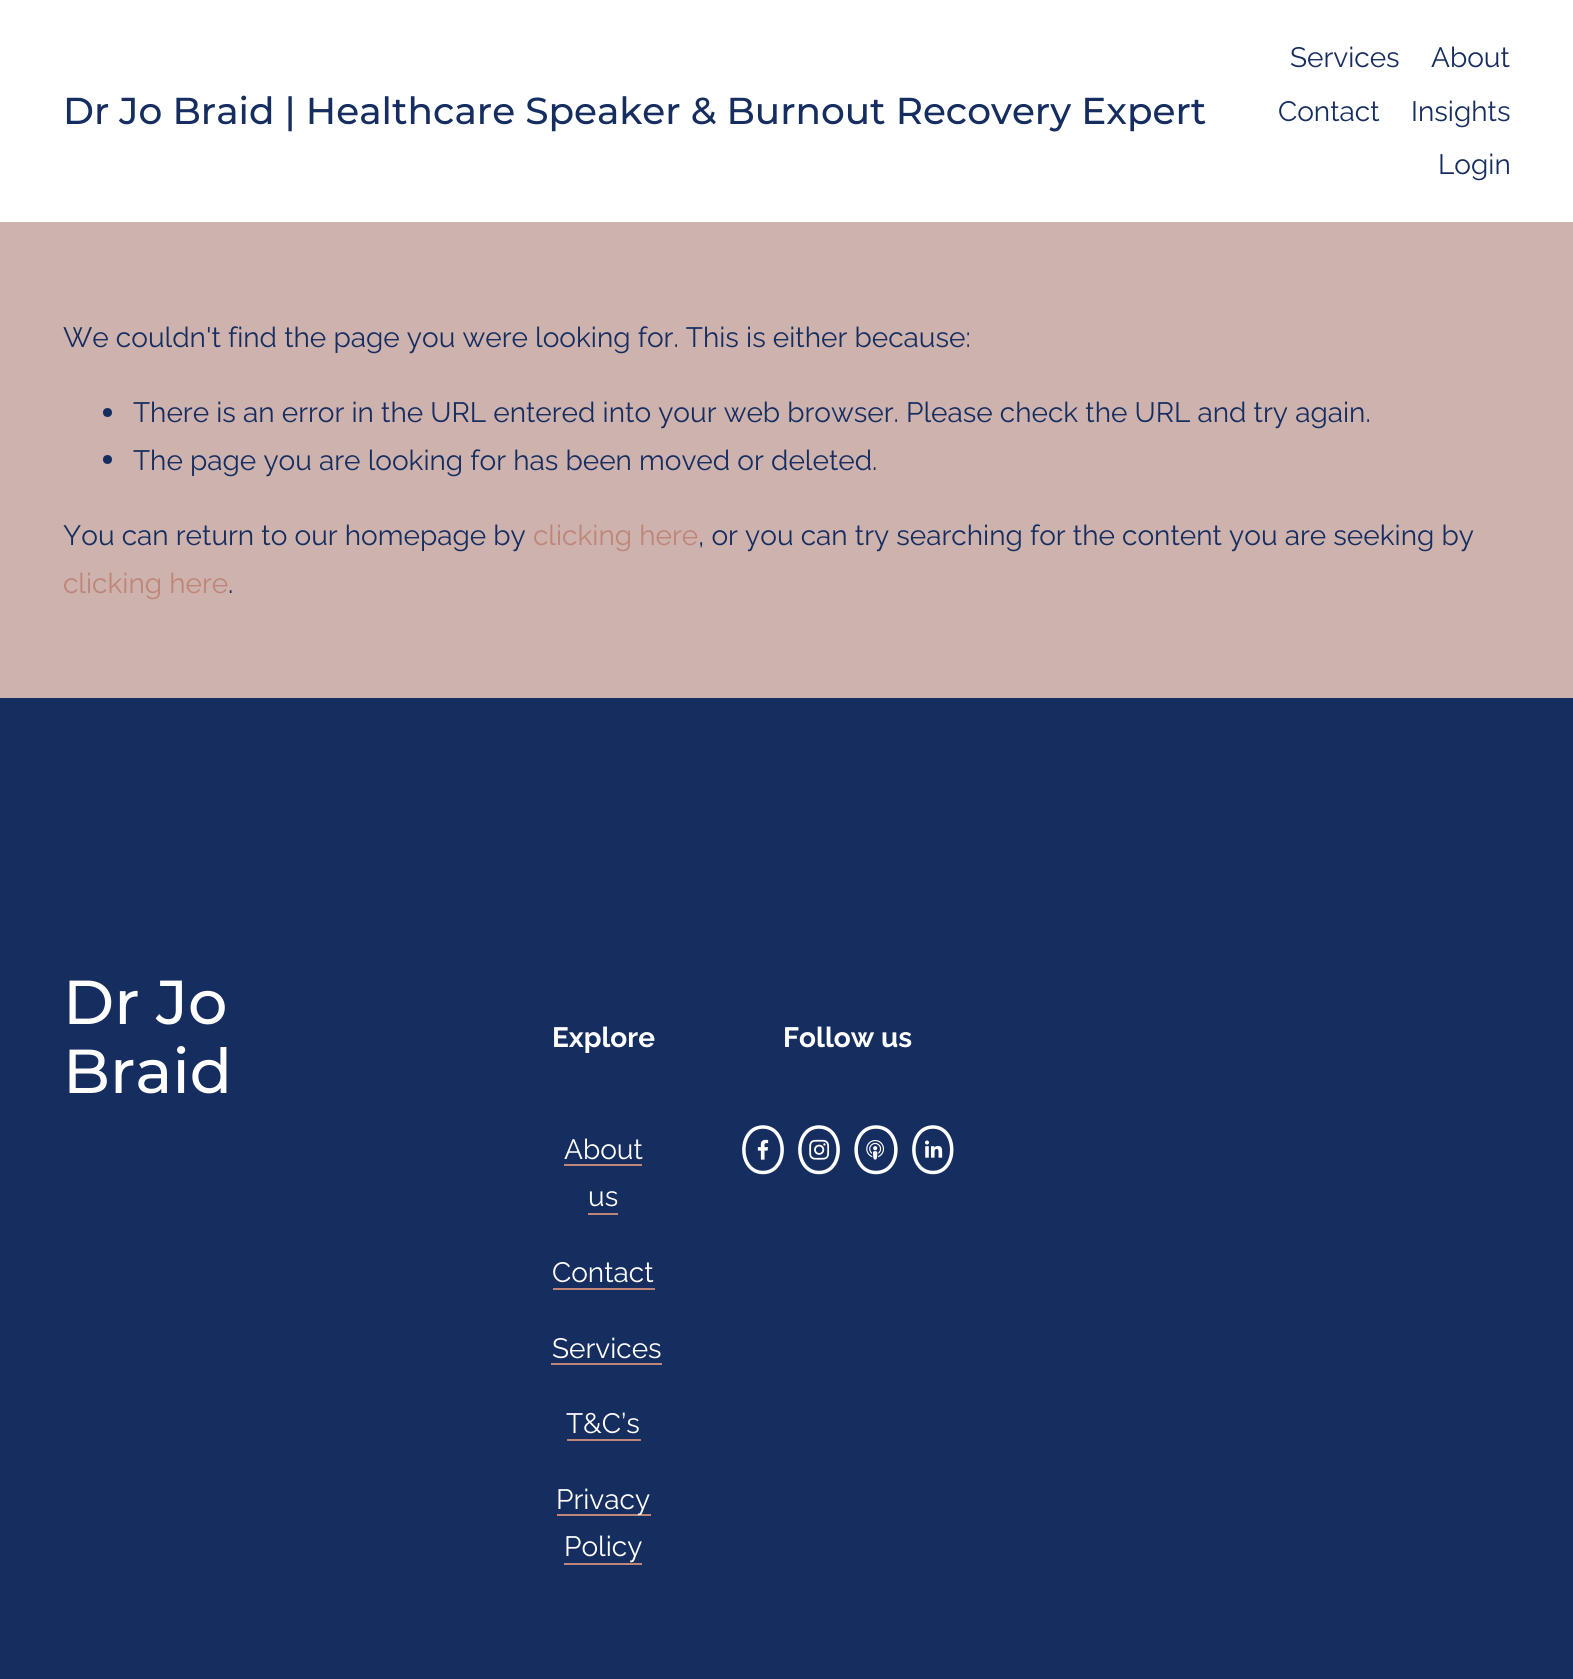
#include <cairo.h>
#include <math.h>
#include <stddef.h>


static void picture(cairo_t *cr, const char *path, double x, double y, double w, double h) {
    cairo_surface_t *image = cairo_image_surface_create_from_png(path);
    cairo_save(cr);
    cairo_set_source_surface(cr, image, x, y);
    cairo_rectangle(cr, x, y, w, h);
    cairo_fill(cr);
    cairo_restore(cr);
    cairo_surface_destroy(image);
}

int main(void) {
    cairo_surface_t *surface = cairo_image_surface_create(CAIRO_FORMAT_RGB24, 1573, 1679);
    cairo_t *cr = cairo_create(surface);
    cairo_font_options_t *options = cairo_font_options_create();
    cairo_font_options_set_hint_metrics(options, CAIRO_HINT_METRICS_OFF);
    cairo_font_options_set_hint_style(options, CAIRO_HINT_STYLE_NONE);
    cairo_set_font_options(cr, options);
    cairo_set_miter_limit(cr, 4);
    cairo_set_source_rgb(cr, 0.804, 0.698, 0.678);
    cairo_paint(cr);
    cairo_set_source_rgb(cr, 1, 1, 1);
    cairo_rectangle(cr, 0, 0, 1573, 222);
    cairo_fill(cr);
    cairo_select_font_face(cr, "Montserrat Medium", CAIRO_FONT_SLANT_NORMAL, CAIRO_FONT_WEIGHT_NORMAL);
    cairo_set_font_size(cr, 37.45);
    cairo_set_source_rgb(cr, 0.086, 0.176, 0.376);
    cairo_move_to(cr, 63, 124);
    cairo_show_text(cr, "Dr Jo Braid | Healthcare Speaker & Burnout Recovery Expert");
    cairo_select_font_face(cr, "Raleway", CAIRO_FONT_SLANT_NORMAL, CAIRO_FONT_WEIGHT_NORMAL);
    cairo_set_font_size(cr, 28);
    cairo_move_to(cr, 1290, 67);
    cairo_show_text(cr, "Services");
    cairo_move_to(cr, 1431, 67);
    cairo_show_text(cr, "About");
    cairo_move_to(cr, 1278, 121);
    cairo_show_text(cr, "Contact");
    cairo_move_to(cr, 1411, 121);
    cairo_show_text(cr, "Insights");
    cairo_move_to(cr, 1438, 174);
    cairo_show_text(cr, "Login");
    cairo_move_to(cr, 63, 347);
    cairo_show_text(cr, "We couldn't find the page you were looking for. This is either because:");
    cairo_new_path(cr);
    cairo_arc(cr, 107.5, 412.5, 4.5, 0, 2 * M_PI);
    cairo_fill(cr);
    cairo_move_to(cr, 133, 422);
    cairo_show_text(cr, "There is an error in the URL entered into your web browser. Please check the URL and try again.");
    cairo_new_path(cr);
    cairo_arc(cr, 107.5, 459.5, 4.5, 0, 2 * M_PI);
    cairo_fill(cr);
    cairo_move_to(cr, 133, 470);
    cairo_show_text(cr, "The page you are looking for has been moved or deleted.");
    cairo_move_to(cr, 63, 545);
    cairo_show_text(cr, "You can return to our homepage by");
    cairo_set_source_rgb(cr, 0.749, 0.522, 0.471);
    cairo_move_to(cr, 533, 545);
    cairo_show_text(cr, "clicking here");
    cairo_set_source_rgb(cr, 0.086, 0.176, 0.376);
    cairo_move_to(cr, 698, 545);
    cairo_show_text(cr, ", or you can try searching for the content you are seeking by");
    cairo_set_source_rgb(cr, 0.749, 0.522, 0.471);
    cairo_move_to(cr, 63, 593);
    cairo_show_text(cr, "clicking here");
    cairo_set_source_rgb(cr, 0.086, 0.176, 0.376);
    cairo_move_to(cr, 228, 593);
    cairo_show_text(cr, ".");
    cairo_rectangle(cr, 0, 698, 1573, 981);
    cairo_fill(cr);
    cairo_select_font_face(cr, "Montserrat Medium", CAIRO_FONT_SLANT_NORMAL, CAIRO_FONT_WEIGHT_NORMAL);
    cairo_set_font_size(cr, 62);
    cairo_set_source_rgb(cr, 1, 1, 1);
    cairo_move_to(cr, 63, 1024);
    cairo_show_text(cr, "Dr Jo");
    cairo_move_to(cr, 63, 1093);
    cairo_show_text(cr, "Braid");
    cairo_select_font_face(cr, "Raleway", CAIRO_FONT_SLANT_NORMAL, CAIRO_FONT_WEIGHT_BOLD);
    cairo_set_font_size(cr, 28);
    cairo_move_to(cr, 552, 1047);
    cairo_show_text(cr, "Explore");
    cairo_move_to(cr, 783, 1047);
    cairo_show_text(cr, "Follow us");
    cairo_select_font_face(cr, "Raleway", CAIRO_FONT_SLANT_NORMAL, CAIRO_FONT_WEIGHT_NORMAL);
    cairo_move_to(cr, 564, 1159);
    cairo_show_text(cr, "About");
    cairo_set_source_rgb(cr, 0.749, 0.522, 0.471);
    cairo_rectangle(cr, 564, 1164, 78, 2);
    cairo_fill(cr);
    cairo_set_source_rgb(cr, 1, 1, 1);
    cairo_move_to(cr, 588, 1206);
    cairo_show_text(cr, "us");
    cairo_set_source_rgb(cr, 0.749, 0.522, 0.471);
    cairo_rectangle(cr, 588, 1213, 30, 2);
    cairo_fill(cr);
    cairo_set_source_rgb(cr, 1, 1, 1);
    cairo_move_to(cr, 552, 1282);
    cairo_show_text(cr, "Contact");
    cairo_set_source_rgb(cr, 0.749, 0.522, 0.471);
    cairo_rectangle(cr, 553, 1288, 102, 2);
    cairo_fill(cr);
    cairo_set_source_rgb(cr, 1, 1, 1);
    cairo_move_to(cr, 552, 1358);
    cairo_show_text(cr, "Services");
    cairo_set_source_rgb(cr, 0.749, 0.522, 0.471);
    cairo_rectangle(cr, 551, 1363, 111, 2);
    cairo_fill(cr);
    cairo_set_source_rgb(cr, 1, 1, 1);
    cairo_move_to(cr, 566, 1433);
    cairo_show_text(cr, "T&C’s");
    cairo_set_source_rgb(cr, 0.749, 0.522, 0.471);
    cairo_rectangle(cr, 567, 1439, 74, 2);
    cairo_fill(cr);
    cairo_rectangle(cr, 557, 1514, 94, 2);
    cairo_fill(cr);
    cairo_set_source_rgb(cr, 1, 1, 1);
    cairo_move_to(cr, 556, 1509);
    cairo_show_text(cr, "Privacy");
    cairo_move_to(cr, 564, 1556);
    cairo_show_text(cr, "Policy");
    cairo_set_source_rgb(cr, 0.749, 0.522, 0.471);
    cairo_rectangle(cr, 564, 1563, 78, 2);
    cairo_fill(cr);
    cairo_new_path(cr);
    cairo_move_to(cr, 763, 1127);
    cairo_curve_to(cr, 788.5, 1127, 788.5, 1172.5, 763, 1172.5);
    cairo_curve_to(cr, 737.5, 1172.5, 737.5, 1127, 763, 1127);
    cairo_close_path(cr);
    cairo_set_source_rgb(cr, 1, 1, 1);
    cairo_set_line_width(cr, 3.5);
    cairo_stroke(cr);
    picture(cr, "img1.png", 757, 1139, 12, 21);
    cairo_new_path(cr);
    cairo_move_to(cr, 819, 1127);
    cairo_curve_to(cr, 844.5, 1127, 844.5, 1172.5, 819, 1172.5);
    cairo_curve_to(cr, 793.5, 1172.5, 793.5, 1127, 819, 1127);
    cairo_close_path(cr);
    cairo_stroke(cr);
    picture(cr, "img2.png", 809, 1139, 21, 21);
    cairo_new_path(cr);
    cairo_move_to(cr, 876, 1127);
    cairo_curve_to(cr, 902.5, 1127, 902.5, 1172.5, 876, 1172.5);
    cairo_curve_to(cr, 849.5, 1172.5, 849.5, 1127, 876, 1127);
    cairo_close_path(cr);
    cairo_stroke(cr);
    picture(cr, "img3.png", 866, 1140, 19, 20);
    cairo_new_path(cr);
    cairo_move_to(cr, 933, 1127);
    cairo_curve_to(cr, 958, 1127, 958, 1172.5, 933, 1172.5);
    cairo_curve_to(cr, 907.5, 1172.5, 907.5, 1127, 933, 1127);
    cairo_close_path(cr);
    cairo_stroke(cr);
    picture(cr, "img4.png", 925, 1140, 18, 18);
    cairo_surface_write_to_png(surface, "page.png");
    cairo_font_options_destroy(options);
    cairo_destroy(cr);
    cairo_surface_destroy(surface);
    return 0;
}
